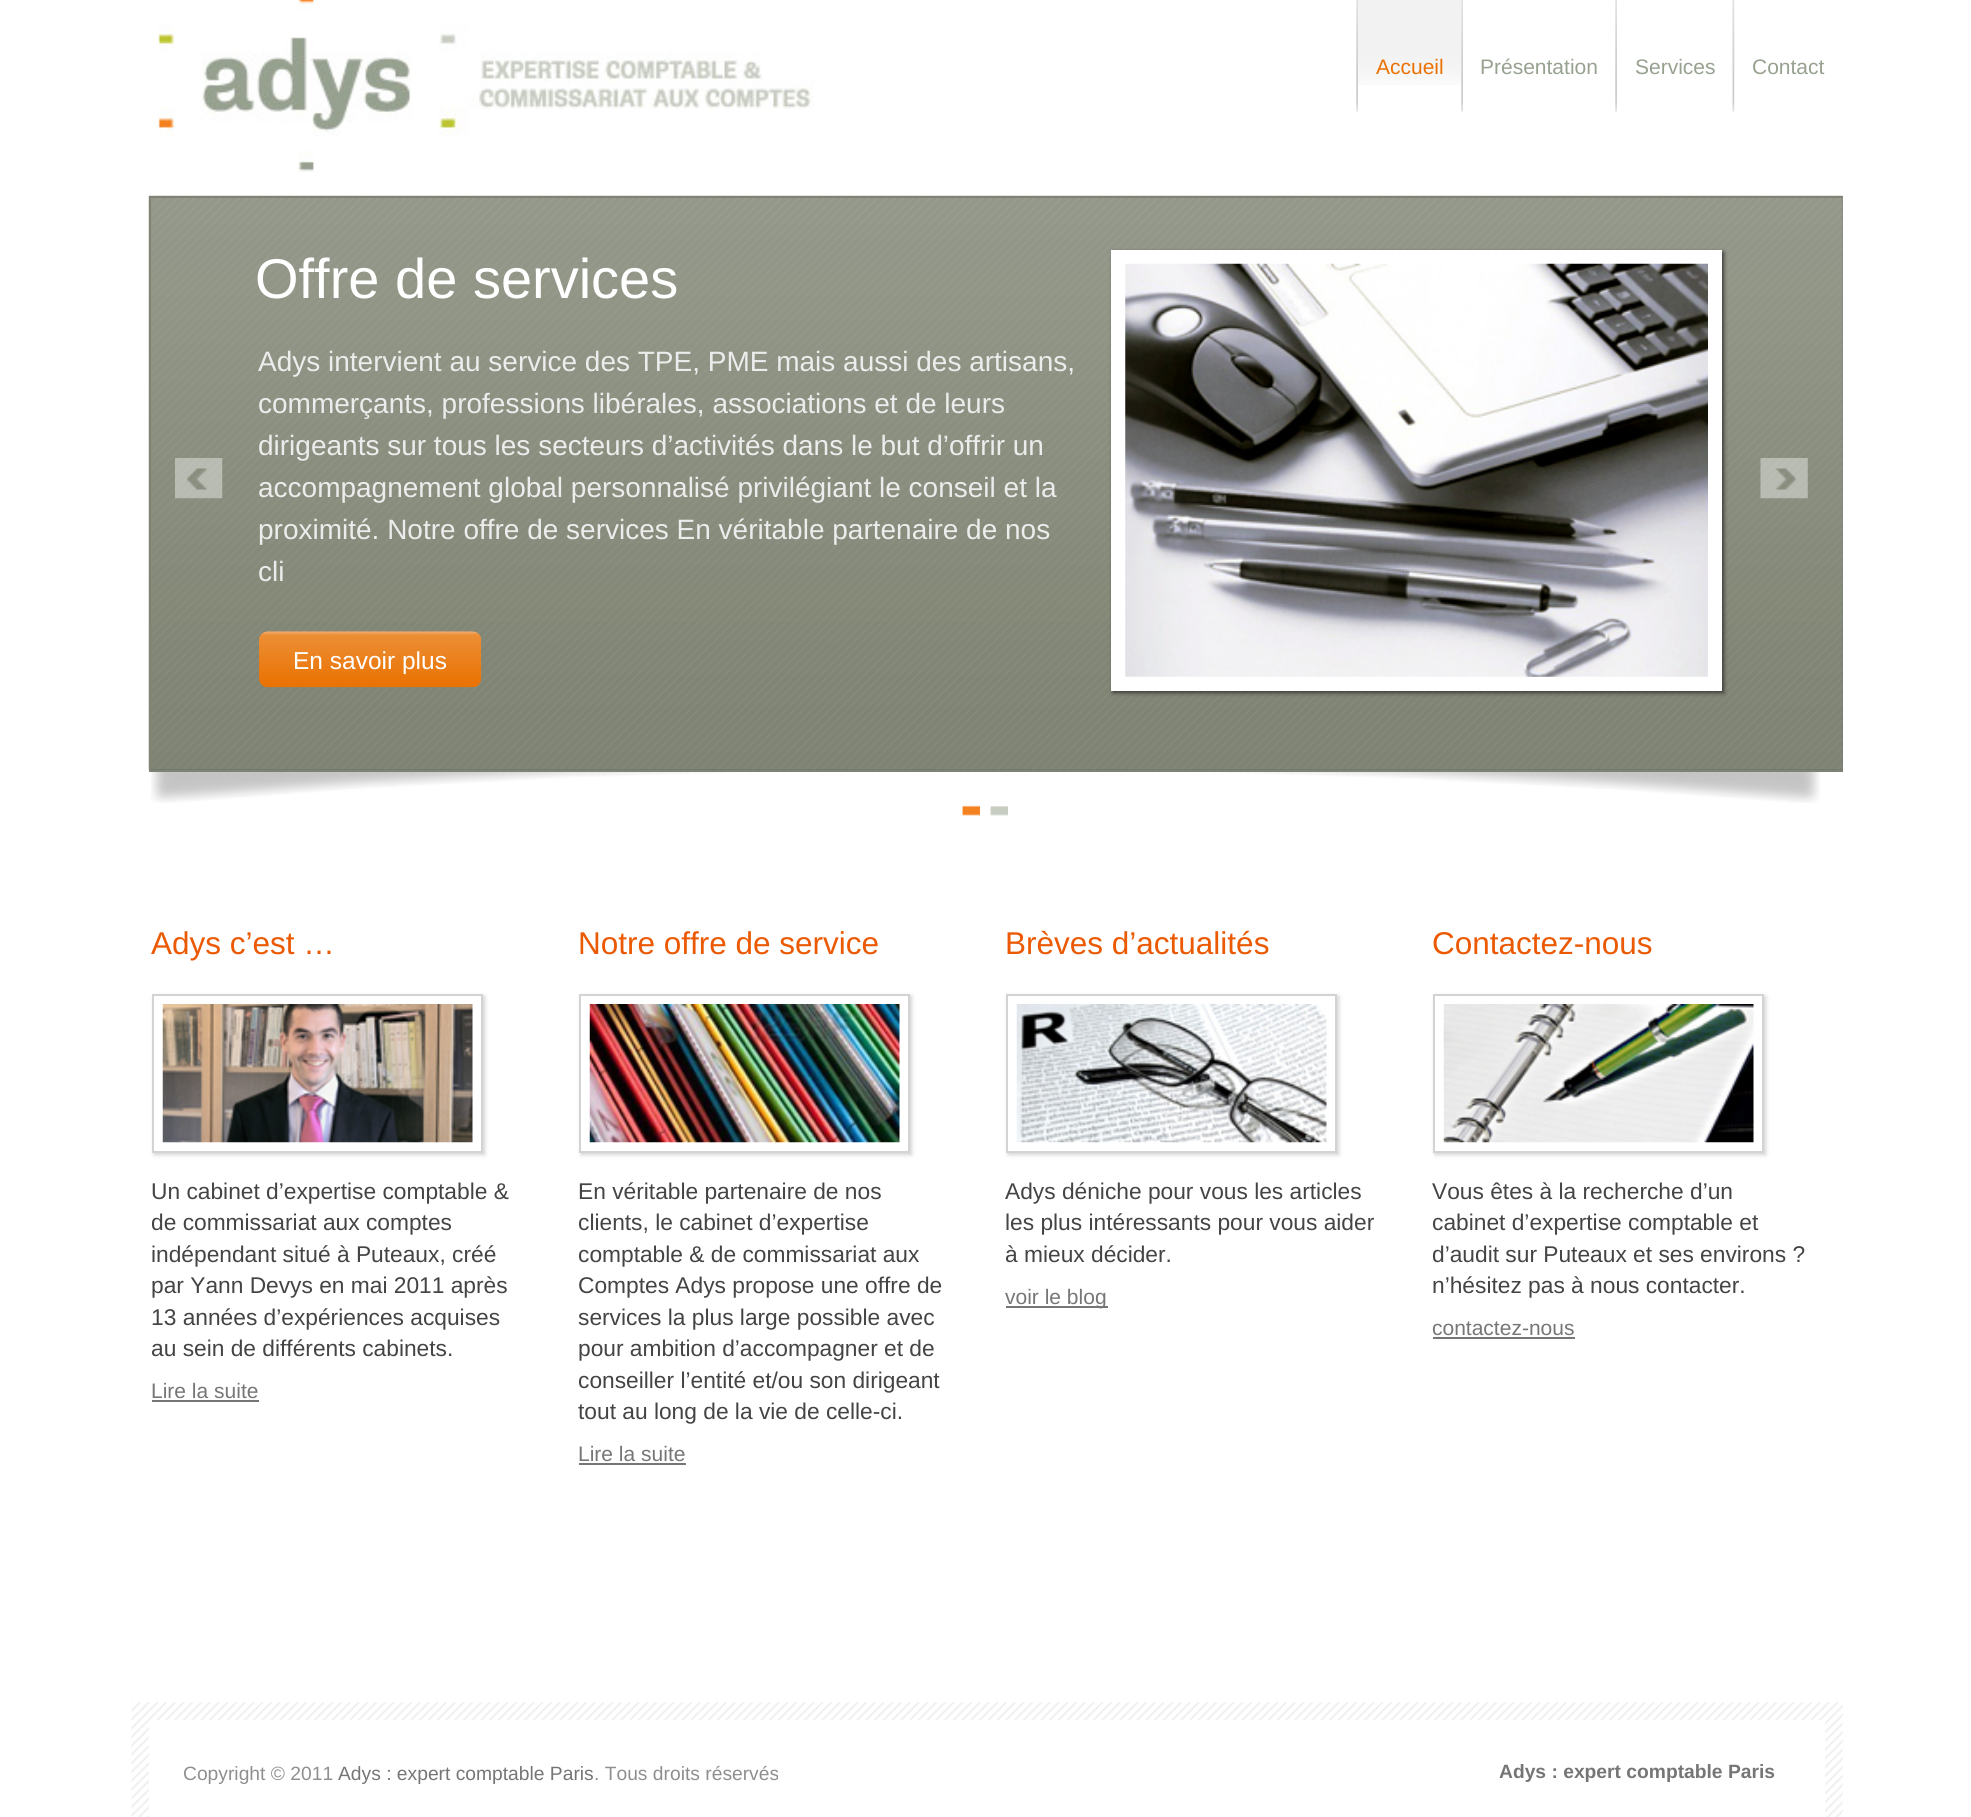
#include <cairo.h>
#include <math.h>
#include <stddef.h>


static void round_rect(cairo_t *cr, double x, double y, double w, double h, double r) {
    cairo_new_sub_path(cr);
    cairo_arc(cr, x + w - r, y + h - r, r, 0, M_PI / 2);
    cairo_arc(cr, x + r, y + h - r, r, M_PI / 2, M_PI);
    cairo_arc(cr, x + r, y + r, r, M_PI, 1.5 * M_PI);
    cairo_arc(cr, x + w - r, y + r, r, 1.5 * M_PI, 2 * M_PI);
    cairo_close_path(cr);
}

static void shadow(cairo_t *cr, double x, double y, double w, double h, double r, double blur, double alpha) {
    cairo_push_group_with_content(cr, CAIRO_CONTENT_ALPHA);
    cairo_set_operator(cr, CAIRO_OPERATOR_SOURCE);
    for (int i = 15; i >= -15 && fmin(w, h) + blur * i / 3 > 0; i -= 2) {
        double e = blur * i / 6;
        cairo_set_source_rgba(cr, 0, 0, 0, alpha * erfc((i - 1) / 8.5) / 2);
        round_rect(cr, x - e, y - e, w + 2 * e, h + 2 * e, fmax(0, fmin(r + e + blur * .6, fmin(w, h) / 2 + e)));
        cairo_fill(cr);
    }
    cairo_pattern_t *soft = cairo_pop_group(cr);
    cairo_mask(cr, soft);
    cairo_pattern_destroy(soft);
}

static void picture(cairo_t *cr, const char *path, double x, double y, double w, double h) {
    cairo_surface_t *image = cairo_image_surface_create_from_png(path);
    cairo_save(cr);
    cairo_set_source_surface(cr, image, x, y);
    cairo_rectangle(cr, x, y, w, h);
    cairo_fill(cr);
    cairo_restore(cr);
    cairo_surface_destroy(image);
}

int main(void) {
    cairo_surface_t *surface = cairo_image_surface_create(CAIRO_FORMAT_RGB24, 1971, 1817);
    cairo_t *cr = cairo_create(surface);
    cairo_font_options_t *options = cairo_font_options_create();
    cairo_font_options_set_hint_metrics(options, CAIRO_HINT_METRICS_OFF);
    cairo_font_options_set_hint_style(options, CAIRO_HINT_STYLE_NONE);
    cairo_set_font_options(cr, options);
    cairo_set_miter_limit(cr, 4);
    cairo_set_source_rgb(cr, 1, 1, 1);
    cairo_paint(cr);
    picture(cr, "img1.png", 158, 0, 656, 172);
    picture(cr, "img2.png", 1356, 0, 2, 112);
    picture(cr, "img3.png", 1358, 0, 103, 85);
    cairo_select_font_face(cr, "Liberation Sans", CAIRO_FONT_SLANT_NORMAL, CAIRO_FONT_WEIGHT_NORMAL);
    cairo_set_font_size(cr, 21);
    cairo_set_source_rgb(cr, 0.918, 0.447, 0.008);
    cairo_move_to(cr, 1376, 74);
    cairo_show_text(cr, "Accueil");
    picture(cr, "img2.png", 1461, 0, 2, 112);
    cairo_set_source_rgb(cr, 0.592, 0.631, 0.565);
    cairo_move_to(cr, 1480, 74);
    cairo_show_text(cr, "Présentation");
    picture(cr, "img2.png", 1615, 0, 2, 112);
    cairo_move_to(cr, 1635, 74);
    cairo_show_text(cr, "Services");
    picture(cr, "img4.png", 1732, 0, 3, 112);
    cairo_move_to(cr, 1752, 74);
    cairo_show_text(cr, "Contact");
    cairo_set_source_rgb(cr, 0.384, 0.431, 0.478);
    cairo_rectangle(cr, 151, 198, 1692, 572);
    cairo_fill(cr);
    picture(cr, "img6.png", 148, 195, 1695, 575);
    cairo_save(cr);
    cairo_rectangle(cr, 131, 196, 1712, 627);
    cairo_clip(cr);
    cairo_rectangle(cr, 150, 197, 1713, 574);
    cairo_set_source_rgb(cr, 0.498, 0.514, 0.451);
    cairo_stroke(cr);
    cairo_restore(cr);
    picture(cr, "img5.png", 175, 458, 48, 41);
    cairo_set_font_size(cr, 56);
    cairo_set_source_rgb(cr, 1, 1, 1);
    cairo_move_to(cr, 255, 298);
    cairo_show_text(cr, "Offre de services");
    cairo_set_source_rgb(cr, 0.231, 0.231, 0.216);
    shadow(cr, 1113, 252, 611, 441, 0, 2, 1);
    cairo_set_source_rgb(cr, 1, 1, 1);
    cairo_rectangle(cr, 1111, 250, 611, 441);
    cairo_fill(cr);
    picture(cr, "img7.png", 1125, 263, 583, 414);
    cairo_set_font_size(cr, 28);
    cairo_set_source_rgb(cr, 0.925, 0.925, 0.925);
    cairo_move_to(cr, 258, 371);
    cairo_show_text(cr, "Adys intervient au service des TPE, PME mais aussi des artisans,");
    cairo_move_to(cr, 258, 413);
    cairo_show_text(cr, "commerçants, professions libérales, associations et de leurs");
    cairo_move_to(cr, 258, 455);
    cairo_show_text(cr, "dirigeants sur tous les secteurs d’activités dans le but d’offrir un");
    cairo_move_to(cr, 258, 497);
    cairo_show_text(cr, "accompagnement global personnalisé privilégiant le conseil et la");
    cairo_move_to(cr, 258, 539);
    cairo_show_text(cr, "proximité. Notre offre de services En véritable partenaire de nos");
    cairo_move_to(cr, 258, 581);
    cairo_show_text(cr, "cli");
    picture(cr, "img8.png", 259, 631, 223, 57);
    cairo_set_font_size(cr, 24.5);
    cairo_set_source_rgb(cr, 1, 1, 1);
    cairo_move_to(cr, 293, 669);
    cairo_show_text(cr, "En savoir plus");
    picture(cr, "img9.png", 1760, 458, 48, 41);
    picture(cr, "img10.png", 151, 772, 1669, 31);
    picture(cr, "img11.png", 962, 805, 18, 11);
    picture(cr, "img12.png", 990, 806, 18, 10);
    cairo_set_font_size(cr, 31.5);
    cairo_set_source_rgb(cr, 0.918, 0.349, 0.008);
    cairo_move_to(cr, 151, 954);
    cairo_show_text(cr, "Adys c’est …");
    cairo_set_source_rgb(cr, 0.827, 0.827, 0.827);
    shadow(cr, 154, 996, 331, 159, 0, 2, 1);
    cairo_set_source_rgb(cr, 1, 1, 1);
    cairo_rectangle(cr, 153, 995, 329, 157);
    cairo_fill_preserve(cr);
    cairo_set_source_rgb(cr, 0.827, 0.827, 0.827);
    cairo_stroke(cr);
    picture(cr, "img13.png", 162, 1004, 311, 139);
    cairo_set_font_size(cr, 22.75);
    cairo_set_source_rgb(cr, 0.267, 0.267, 0.267);
    cairo_move_to(cr, 151, 1199);
    cairo_show_text(cr, "Un cabinet d’expertise comptable &");
    cairo_move_to(cr, 151, 1230);
    cairo_show_text(cr, "de commissariat aux comptes");
    cairo_move_to(cr, 151, 1262);
    cairo_show_text(cr, "indépendant situé à Puteaux, créé");
    cairo_move_to(cr, 151, 1293);
    cairo_show_text(cr, "par Yann Devys en mai 2011 après");
    cairo_move_to(cr, 151, 1325);
    cairo_show_text(cr, "13 années d’expériences acquises");
    cairo_move_to(cr, 151, 1356);
    cairo_show_text(cr, "au sein de différents cabinets.");
    cairo_set_font_size(cr, 21);
    cairo_set_source_rgb(cr, 0.467, 0.463, 0.463);
    cairo_move_to(cr, 151, 1398);
    cairo_show_text(cr, "Lire la suite");
    cairo_rectangle(cr, 152, 1400, 107, 2);
    cairo_fill(cr);
    cairo_set_font_size(cr, 31.5);
    cairo_set_source_rgb(cr, 0.918, 0.349, 0.008);
    cairo_move_to(cr, 578, 954);
    cairo_show_text(cr, "Notre offre de service");
    cairo_set_source_rgb(cr, 0.827, 0.827, 0.827);
    shadow(cr, 581, 996, 331, 159, 0, 2, 1);
    cairo_set_source_rgb(cr, 1, 1, 1);
    cairo_rectangle(cr, 580, 995, 329, 157);
    cairo_fill_preserve(cr);
    cairo_set_source_rgb(cr, 0.827, 0.827, 0.827);
    cairo_stroke(cr);
    picture(cr, "img14.png", 589, 1004, 311, 139);
    cairo_set_font_size(cr, 22.75);
    cairo_set_source_rgb(cr, 0.267, 0.267, 0.267);
    cairo_move_to(cr, 578, 1199);
    cairo_show_text(cr, "En véritable partenaire de nos");
    cairo_move_to(cr, 578, 1230);
    cairo_show_text(cr, "clients, le cabinet d’expertise");
    cairo_move_to(cr, 578, 1262);
    cairo_show_text(cr, "comptable & de commissariat aux");
    cairo_move_to(cr, 578, 1293);
    cairo_show_text(cr, "Comptes Adys propose une offre de");
    cairo_move_to(cr, 578, 1325);
    cairo_show_text(cr, "services la plus large possible avec");
    cairo_move_to(cr, 578, 1356);
    cairo_show_text(cr, "pour ambition d’accompagner et de");
    cairo_move_to(cr, 578, 1388);
    cairo_show_text(cr, "conseiller l’entité et/ou son dirigeant");
    cairo_move_to(cr, 578, 1419);
    cairo_show_text(cr, "tout au long de la vie de celle-ci.");
    cairo_set_font_size(cr, 21);
    cairo_set_source_rgb(cr, 0.467, 0.463, 0.463);
    cairo_move_to(cr, 578, 1461);
    cairo_show_text(cr, "Lire la suite");
    cairo_rectangle(cr, 579, 1463, 107, 2);
    cairo_fill(cr);
    cairo_set_font_size(cr, 31.5);
    cairo_set_source_rgb(cr, 0.918, 0.349, 0.008);
    cairo_move_to(cr, 1005, 954);
    cairo_show_text(cr, "Brèves d’actualités");
    cairo_set_source_rgb(cr, 0.827, 0.827, 0.827);
    shadow(cr, 1008, 996, 331, 159, 0, 2, 1);
    cairo_set_source_rgb(cr, 1, 1, 1);
    cairo_rectangle(cr, 1007, 995, 329, 157);
    cairo_fill_preserve(cr);
    cairo_set_source_rgb(cr, 0.827, 0.827, 0.827);
    cairo_stroke(cr);
    picture(cr, "img15.png", 1016, 1004, 311, 139);
    cairo_set_font_size(cr, 22.75);
    cairo_set_source_rgb(cr, 0.267, 0.267, 0.267);
    cairo_move_to(cr, 1005, 1199);
    cairo_show_text(cr, "Adys déniche pour vous les articles");
    cairo_move_to(cr, 1005, 1230);
    cairo_show_text(cr, "les plus intéressants pour vous aider");
    cairo_move_to(cr, 1005, 1262);
    cairo_show_text(cr, "à mieux décider.");
    cairo_set_source_rgb(cr, 0.467, 0.463, 0.463);
    cairo_rectangle(cr, 1006, 1306, 102, 2);
    cairo_fill(cr);
    cairo_set_font_size(cr, 21);
    cairo_move_to(cr, 1005, 1304);
    cairo_show_text(cr, "voir le blog");
    cairo_set_font_size(cr, 31.5);
    cairo_set_source_rgb(cr, 0.918, 0.349, 0.008);
    cairo_move_to(cr, 1432, 954);
    cairo_show_text(cr, "Contactez-nous");
    cairo_set_source_rgb(cr, 0.827, 0.827, 0.827);
    shadow(cr, 1435, 996, 331, 159, 0, 2, 1);
    cairo_set_source_rgb(cr, 1, 1, 1);
    cairo_rectangle(cr, 1434, 995, 329, 157);
    cairo_fill_preserve(cr);
    cairo_set_source_rgb(cr, 0.827, 0.827, 0.827);
    cairo_stroke(cr);
    picture(cr, "img16.png", 1443, 1004, 311, 139);
    cairo_set_font_size(cr, 22.75);
    cairo_set_source_rgb(cr, 0.267, 0.267, 0.267);
    cairo_move_to(cr, 1432, 1199);
    cairo_show_text(cr, "Vous êtes à la recherche d’un");
    cairo_move_to(cr, 1432, 1230);
    cairo_show_text(cr, "cabinet d’expertise comptable et");
    cairo_move_to(cr, 1432, 1262);
    cairo_show_text(cr, "d’audit sur Puteaux et ses environs ?");
    cairo_move_to(cr, 1432, 1293);
    cairo_show_text(cr, "n’hésitez pas à nous contacter.");
    cairo_set_font_size(cr, 21);
    cairo_set_source_rgb(cr, 0.467, 0.463, 0.463);
    cairo_move_to(cr, 1432, 1335);
    cairo_show_text(cr, "contactez-nous");
    cairo_rectangle(cr, 1433, 1337, 142, 2);
    cairo_fill(cr);
    picture(cr, "img17.png", 131, 1702, 1712, 115);
    cairo_set_source_rgb(cr, 1, 1, 1);
    cairo_rectangle(cr, 149, 1720, 1676, 97);
    cairo_fill(cr);
    cairo_set_font_size(cr, 19.25);
    cairo_set_source_rgb(cr, 0.561, 0.561, 0.561);
    cairo_move_to(cr, 183, 1780);
    cairo_show_text(cr, "Copyright © 2011");
    cairo_set_source_rgb(cr, 0.467, 0.463, 0.463);
    cairo_move_to(cr, 338, 1780);
    cairo_show_text(cr, "Adys : expert comptable Paris");
    cairo_set_source_rgb(cr, 0.561, 0.561, 0.561);
    cairo_move_to(cr, 594, 1780);
    cairo_show_text(cr, ". Tous droits réservés");
    cairo_select_font_face(cr, "Liberation Sans", CAIRO_FONT_SLANT_NORMAL, CAIRO_FONT_WEIGHT_BOLD);
    cairo_set_source_rgb(cr, 0.467, 0.463, 0.463);
    cairo_move_to(cr, 1499, 1778);
    cairo_show_text(cr, "Adys : expert comptable Paris");
    cairo_surface_write_to_png(surface, "page.png");
    cairo_font_options_destroy(options);
    cairo_destroy(cr);
    cairo_surface_destroy(surface);
    return 0;
}
